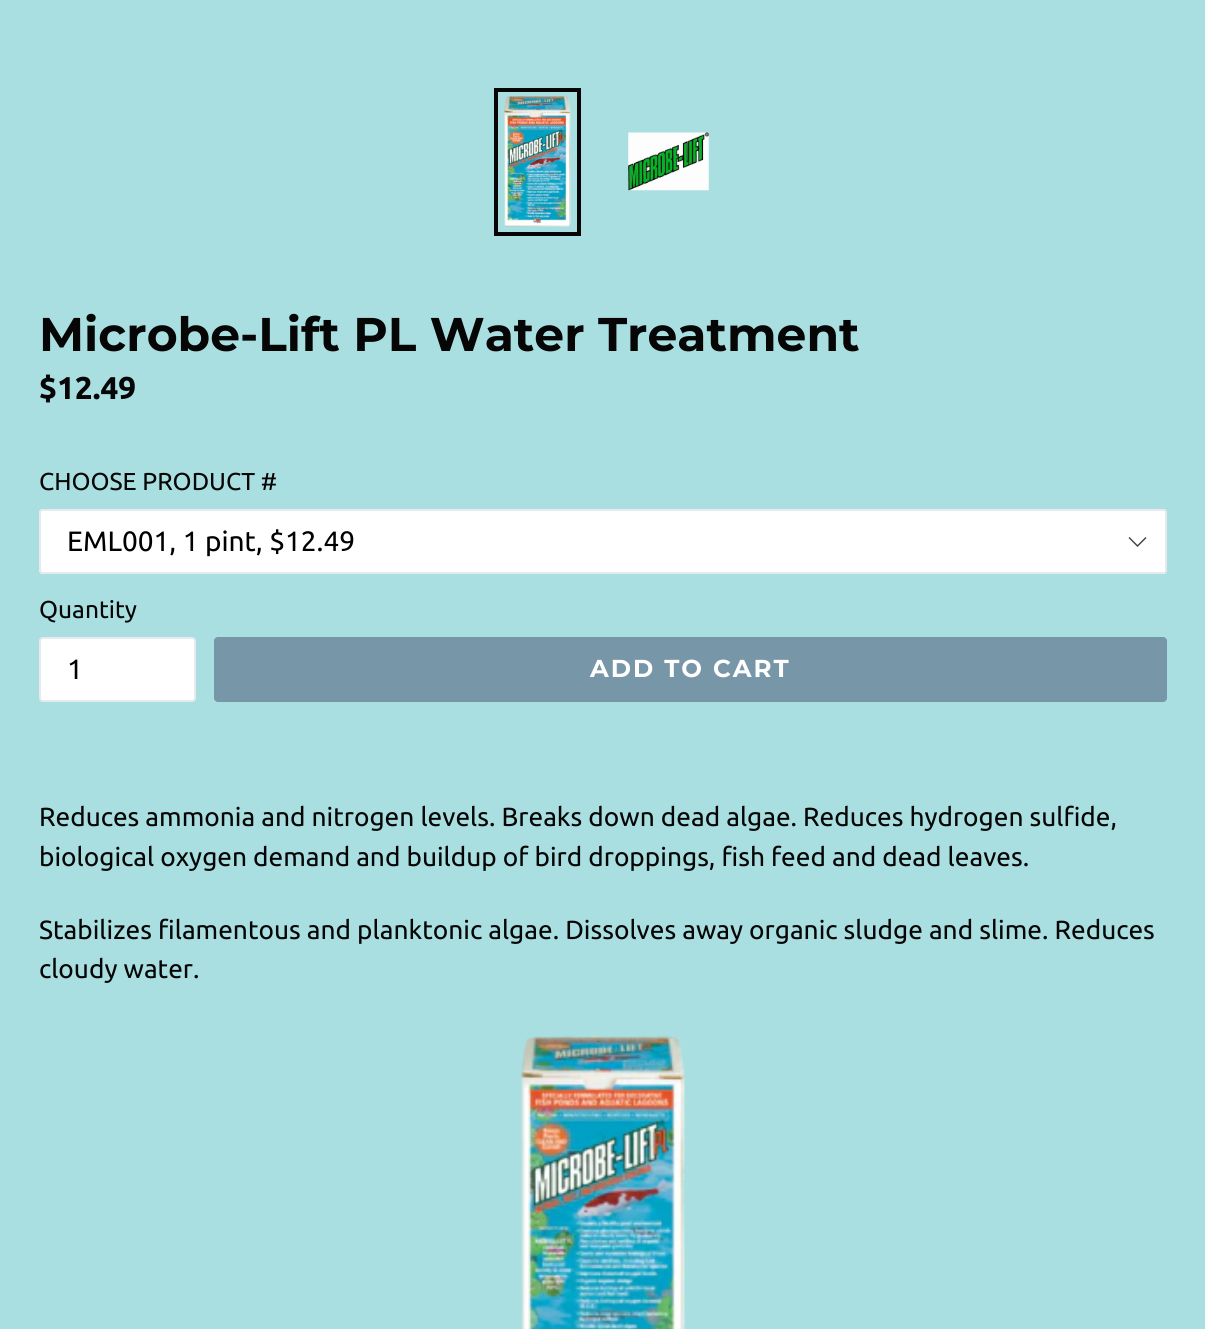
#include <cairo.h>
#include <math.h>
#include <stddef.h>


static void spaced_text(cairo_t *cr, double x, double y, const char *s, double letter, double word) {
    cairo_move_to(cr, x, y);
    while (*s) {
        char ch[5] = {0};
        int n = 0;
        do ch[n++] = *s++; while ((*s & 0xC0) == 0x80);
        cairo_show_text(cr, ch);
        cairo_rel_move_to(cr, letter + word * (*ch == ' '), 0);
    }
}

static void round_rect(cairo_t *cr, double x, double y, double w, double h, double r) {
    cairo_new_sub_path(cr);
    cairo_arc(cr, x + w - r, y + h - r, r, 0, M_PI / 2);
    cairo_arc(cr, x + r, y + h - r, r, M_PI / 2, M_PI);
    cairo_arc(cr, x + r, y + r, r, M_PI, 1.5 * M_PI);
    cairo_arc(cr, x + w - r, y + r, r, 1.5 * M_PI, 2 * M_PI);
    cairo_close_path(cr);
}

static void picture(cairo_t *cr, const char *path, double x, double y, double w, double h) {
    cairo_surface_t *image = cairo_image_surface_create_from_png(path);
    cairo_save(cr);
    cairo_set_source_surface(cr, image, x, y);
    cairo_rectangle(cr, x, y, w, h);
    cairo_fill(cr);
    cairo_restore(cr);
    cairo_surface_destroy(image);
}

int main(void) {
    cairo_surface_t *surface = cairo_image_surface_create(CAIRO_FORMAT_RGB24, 1205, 1329);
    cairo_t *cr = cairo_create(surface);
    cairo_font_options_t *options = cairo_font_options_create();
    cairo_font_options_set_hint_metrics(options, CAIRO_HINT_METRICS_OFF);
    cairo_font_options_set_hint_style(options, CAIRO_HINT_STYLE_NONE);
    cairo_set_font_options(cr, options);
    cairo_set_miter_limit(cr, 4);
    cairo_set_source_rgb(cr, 0.667, 0.875, 0.882);
    cairo_paint(cr);
    cairo_rectangle(cr, 496, 90, 83, 144);
    cairo_set_source_rgb(cr, 0.027, 0.027, 0.027);
    cairo_set_line_width(cr, 4);
    cairo_stroke(cr);
    picture(cr, "img1.png", 504, 95, 67, 132);
    picture(cr, "img2.png", 628, 132, 81, 59);
    cairo_select_font_face(cr, "Montserrat Thin", CAIRO_FONT_SLANT_NORMAL, CAIRO_FONT_WEIGHT_NORMAL);
    cairo_set_font_size(cr, 47.25);
    cairo_move_to(cr, 39, 351);
    cairo_show_text(cr, "Microbe-Lift PL Water Treatment");
    cairo_select_font_face(cr, "Ubuntu", CAIRO_FONT_SLANT_NORMAL, CAIRO_FONT_WEIGHT_BOLD);
    cairo_set_font_size(cr, 31.5);
    cairo_move_to(cr, 39, 399);
    cairo_show_text(cr, "$12.49");
    cairo_select_font_face(cr, "Ubuntu", CAIRO_FONT_SLANT_NORMAL, CAIRO_FONT_WEIGHT_NORMAL);
    cairo_set_font_size(cr, 24.5);
    cairo_move_to(cr, 39, 490);
    cairo_show_text(cr, "CHOOSE PRODUCT #");
    cairo_set_source_rgb(cr, 1, 1, 1);
    round_rect(cr, 39, 509, 1128, 65, 4);
    cairo_fill(cr);
    cairo_set_source_rgb(cr, 0.239, 0.259, 0.275);
    cairo_new_path(cr);
    cairo_move_to(cr, 1137.5, 547);
    cairo_line_to(cr, 1128.5, 538);
    cairo_line_to(cr, 1129.5, 537);
    cairo_line_to(cr, 1137.5, 545);
    cairo_line_to(cr, 1145.5, 537);
    cairo_line_to(cr, 1146.5, 538);
    cairo_close_path(cr);
    cairo_fill(cr);
    round_rect(cr, 40, 510, 1126, 63, 3);
    cairo_set_source_rgb(cr, 0.91, 0.914, 0.922);
    cairo_set_line_width(cr, 2);
    cairo_stroke(cr);
    cairo_set_font_size(cr, 28);
    cairo_set_source_rgb(cr, 0, 0, 0);
    cairo_move_to(cr, 67, 551);
    cairo_show_text(cr, "EML001, 1 pint, $12.49");
    cairo_set_font_size(cr, 24.5);
    cairo_set_source_rgb(cr, 0.027, 0.027, 0.027);
    cairo_move_to(cr, 39, 618);
    cairo_show_text(cr, "Quantity");
    cairo_set_source_rgb(cr, 1, 1, 1);
    round_rect(cr, 40, 638, 155, 63, 3);
    cairo_fill_preserve(cr);
    cairo_set_source_rgb(cr, 0.91, 0.914, 0.922);
    cairo_stroke(cr);
    cairo_set_font_size(cr, 28);
    cairo_set_source_rgb(cr, 0, 0, 0);
    cairo_move_to(cr, 67, 679);
    cairo_show_text(cr, "1");
    cairo_set_source_rgb(cr, 0.467, 0.588, 0.659);
    round_rect(cr, 214, 637, 953, 65, 4);
    cairo_fill(cr);
    cairo_select_font_face(cr, "Montserrat Thin", CAIRO_FONT_SLANT_NORMAL, CAIRO_FONT_WEIGHT_NORMAL);
    cairo_set_font_size(cr, 24.5);
    cairo_set_source_rgb(cr, 1, 1, 1);
    spaced_text(cr, 590, 677, "ADD TO CART", 2, 0);
    cairo_select_font_face(cr, "Ubuntu", CAIRO_FONT_SLANT_NORMAL, CAIRO_FONT_WEIGHT_NORMAL);
    cairo_set_font_size(cr, 26.25);
    cairo_set_source_rgb(cr, 0.027, 0.027, 0.027);
    cairo_move_to(cr, 39, 826);
    cairo_show_text(cr, "Reduces ammonia and nitrogen levels. Breaks down dead algae. Reduces hydrogen sulfide,");
    cairo_move_to(cr, 39, 866);
    cairo_show_text(cr, "biological oxygen demand and buildup of bird droppings, fish feed and dead leaves.");
    cairo_move_to(cr, 39, 939);
    cairo_show_text(cr, "Stabilizes filamentous and planktonic algae. Dissolves away organic sludge and slime. Reduces");
    cairo_move_to(cr, 39, 978);
    cairo_show_text(cr, "cloudy water.");
    picture(cr, "img3.png", 521, 1035, 165, 294);
    cairo_surface_write_to_png(surface, "page.png");
    cairo_font_options_destroy(options);
    cairo_destroy(cr);
    cairo_surface_destroy(surface);
    return 0;
}
